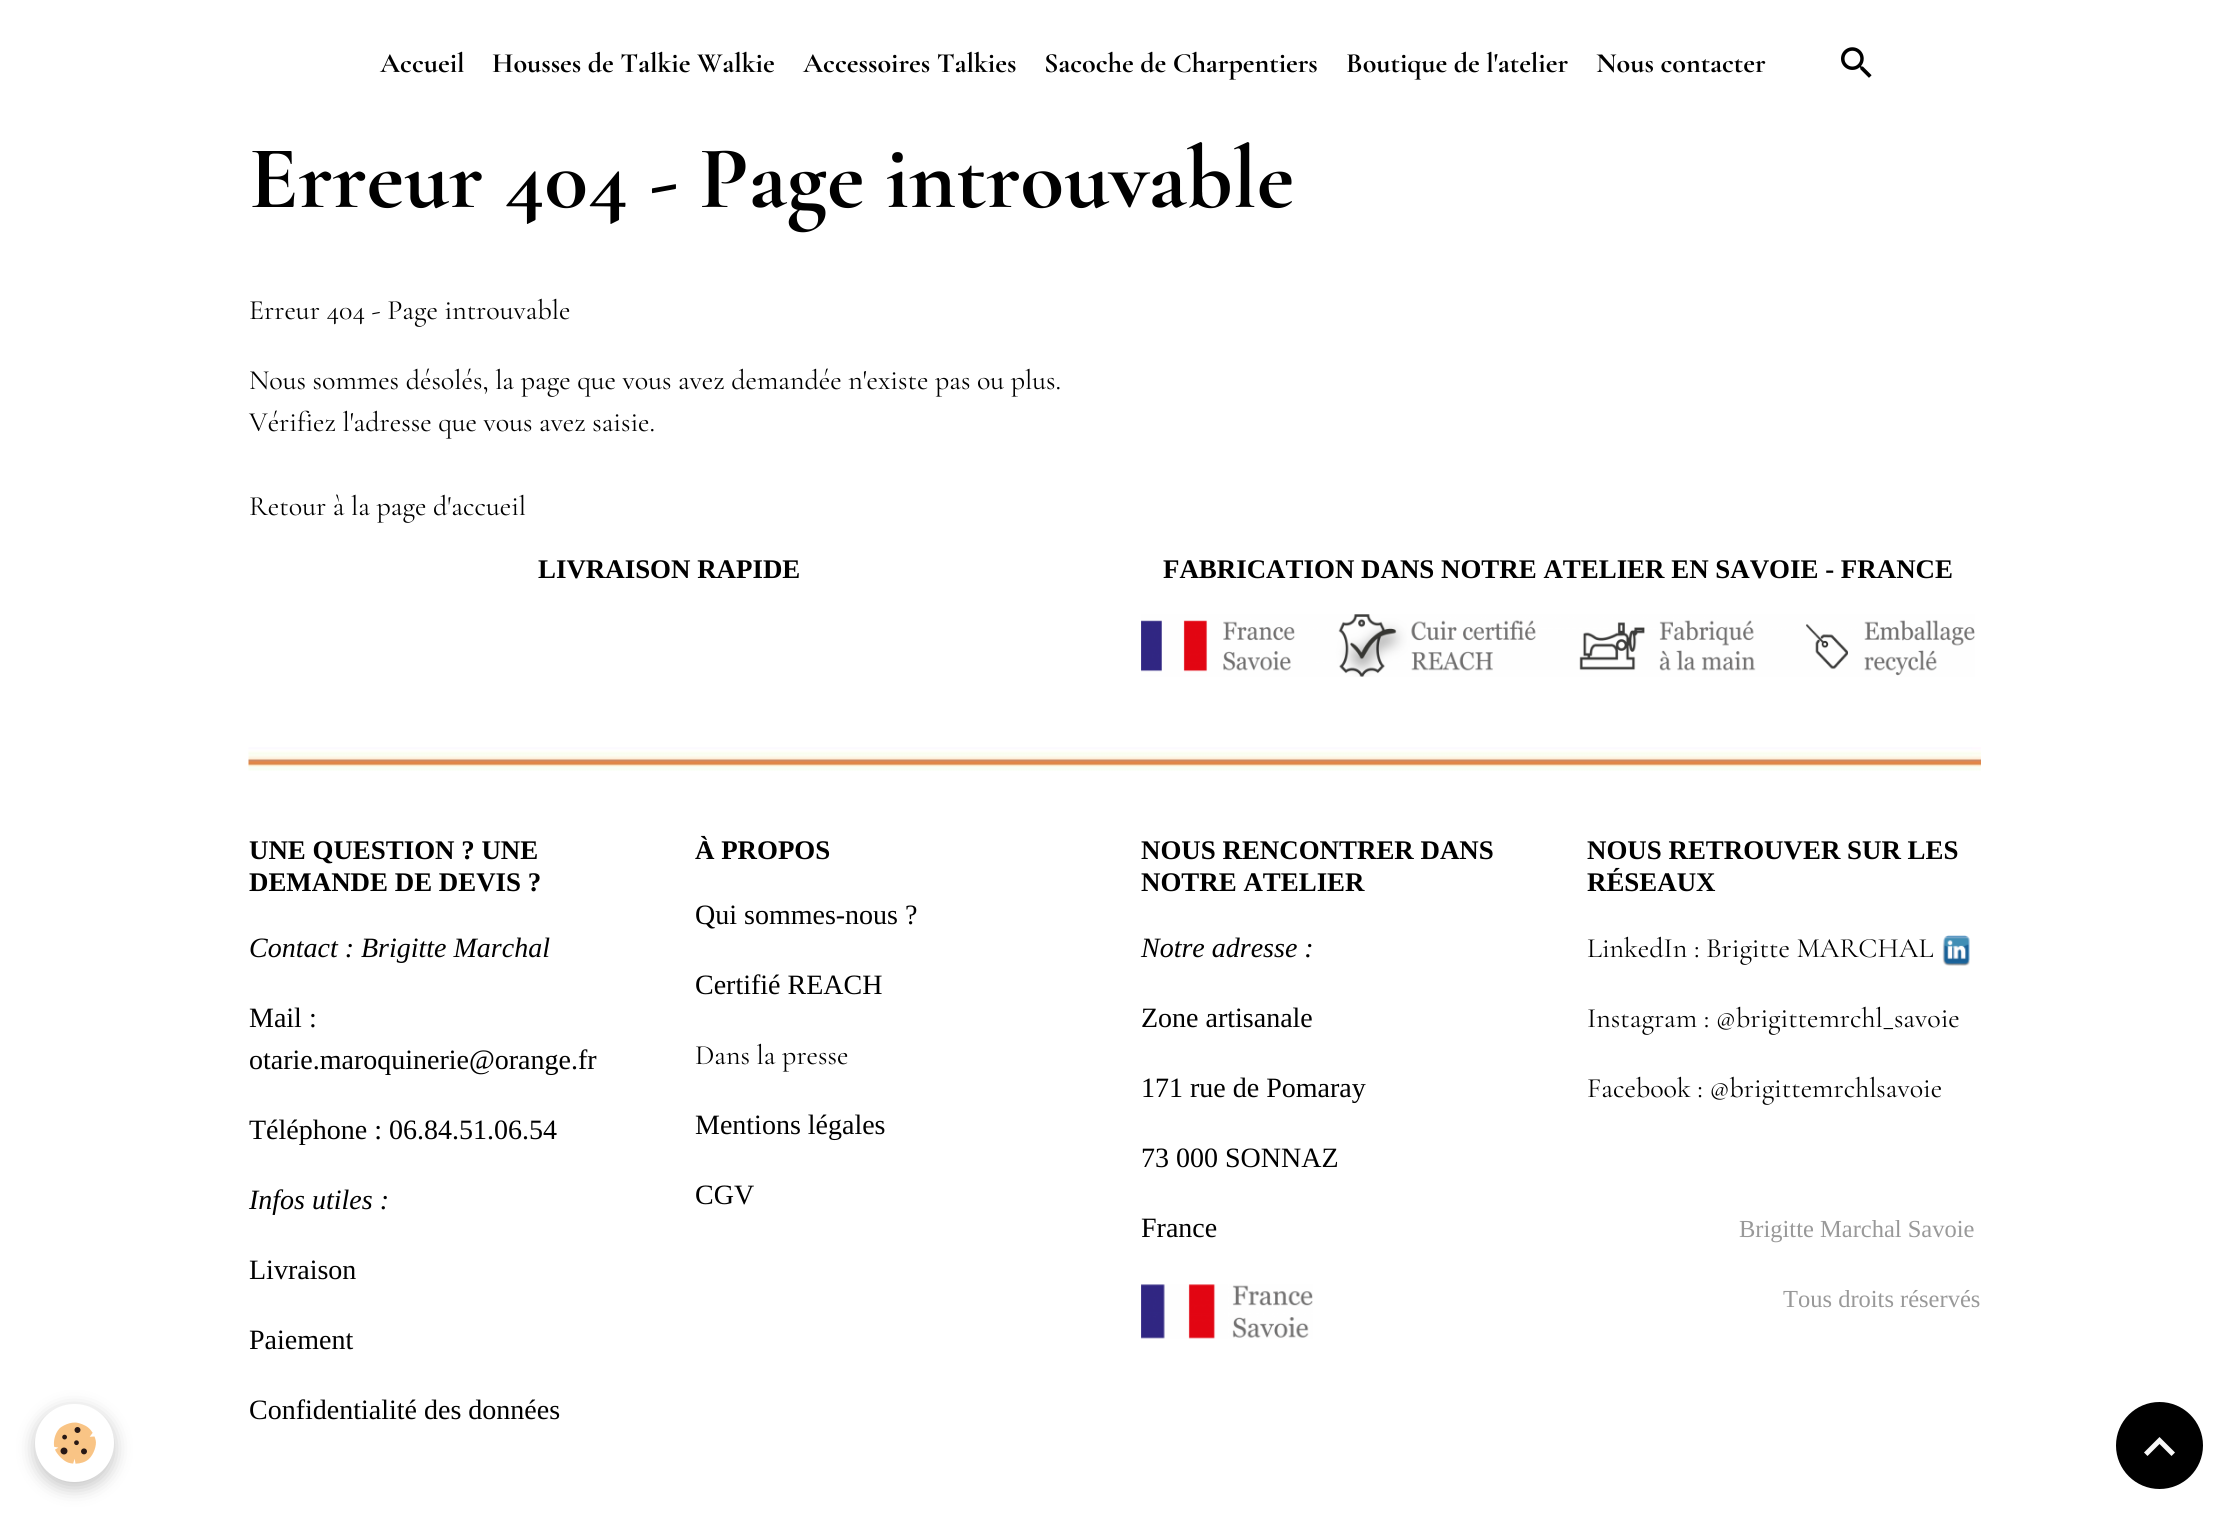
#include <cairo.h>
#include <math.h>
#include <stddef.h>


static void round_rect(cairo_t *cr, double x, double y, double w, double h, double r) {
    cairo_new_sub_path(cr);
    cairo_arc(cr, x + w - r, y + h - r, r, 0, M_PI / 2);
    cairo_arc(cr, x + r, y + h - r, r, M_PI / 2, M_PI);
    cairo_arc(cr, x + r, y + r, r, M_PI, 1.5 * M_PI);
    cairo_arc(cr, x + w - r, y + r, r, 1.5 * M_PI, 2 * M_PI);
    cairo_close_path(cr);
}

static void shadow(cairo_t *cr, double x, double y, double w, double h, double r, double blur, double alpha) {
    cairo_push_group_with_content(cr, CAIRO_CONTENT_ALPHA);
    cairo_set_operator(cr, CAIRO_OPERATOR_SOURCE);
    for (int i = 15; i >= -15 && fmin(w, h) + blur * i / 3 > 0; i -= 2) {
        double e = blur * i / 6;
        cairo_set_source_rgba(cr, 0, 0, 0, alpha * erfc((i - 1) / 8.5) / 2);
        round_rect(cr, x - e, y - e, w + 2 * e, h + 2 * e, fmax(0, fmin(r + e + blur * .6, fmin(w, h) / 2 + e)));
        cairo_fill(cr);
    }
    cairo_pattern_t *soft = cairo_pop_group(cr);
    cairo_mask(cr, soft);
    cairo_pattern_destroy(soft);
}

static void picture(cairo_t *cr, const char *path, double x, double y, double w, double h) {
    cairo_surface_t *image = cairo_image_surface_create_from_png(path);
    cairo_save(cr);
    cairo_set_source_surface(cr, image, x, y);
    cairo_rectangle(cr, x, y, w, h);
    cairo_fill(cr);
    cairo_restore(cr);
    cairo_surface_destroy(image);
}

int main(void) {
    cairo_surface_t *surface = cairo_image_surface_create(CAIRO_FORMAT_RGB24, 2229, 1515);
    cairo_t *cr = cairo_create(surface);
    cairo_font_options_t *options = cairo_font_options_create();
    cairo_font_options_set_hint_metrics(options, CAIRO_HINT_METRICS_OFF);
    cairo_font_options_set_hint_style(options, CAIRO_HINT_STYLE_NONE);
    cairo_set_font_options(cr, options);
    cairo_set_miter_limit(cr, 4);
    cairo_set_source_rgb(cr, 1, 1, 1);
    cairo_paint(cr);
    cairo_select_font_face(cr, "Cormorant Garamond", CAIRO_FONT_SLANT_NORMAL, CAIRO_FONT_WEIGHT_BOLD);
    cairo_set_font_size(cr, 28);
    cairo_set_source_rgb(cr, 0, 0, 0);
    cairo_move_to(cr, 380, 72);
    cairo_show_text(cr, "Accueil");
    cairo_move_to(cr, 492, 72);
    cairo_show_text(cr, "Housses de Talkie Walkie");
    cairo_move_to(cr, 803, 72);
    cairo_show_text(cr, "Accessoires Talkies");
    cairo_move_to(cr, 1044, 72);
    cairo_show_text(cr, "Sacoche de Charpentiers");
    cairo_move_to(cr, 1346, 72);
    cairo_show_text(cr, "Boutique de l'atelier");
    cairo_move_to(cr, 1596, 72);
    cairo_show_text(cr, "Nous contacter");
    picture(cr, "img1.png", 1841, 47, 31, 31);
    cairo_set_font_size(cr, 89.6);
    cairo_move_to(cr, 249, 207);
    cairo_show_text(cr, "Erreur 404 - Page introuvable");
    cairo_select_font_face(cr, "Cormorant Garamond", CAIRO_FONT_SLANT_NORMAL, CAIRO_FONT_WEIGHT_NORMAL);
    cairo_set_font_size(cr, 28);
    cairo_move_to(cr, 249, 319);
    cairo_show_text(cr, "Erreur 404 - Page introuvable");
    cairo_move_to(cr, 249, 389);
    cairo_show_text(cr, "Nous sommes désolés, la page que vous avez demandée n'existe pas ou plus.");
    cairo_move_to(cr, 249, 431);
    cairo_show_text(cr, "Vérifiez l'adresse que vous avez saisie.");
    cairo_move_to(cr, 249, 515);
    cairo_show_text(cr, "Retour à la page d'accueil");
    cairo_select_font_face(cr, "Liberation Serif", CAIRO_FONT_SLANT_NORMAL, CAIRO_FONT_WEIGHT_BOLD);
    cairo_set_font_size(cr, 26.9);
    cairo_move_to(cr, 538, 578);
    cairo_show_text(cr, "LIVRAISON RAPIDE");
    cairo_move_to(cr, 1163, 578);
    cairo_show_text(cr, "FABRICATION DANS NOTRE ATELIER EN SAVOIE - FRANCE");
    picture(cr, "img2.png", 1141, 614, 834, 63);
    picture(cr, "img3.png", 248, 747, 1733, 24);
    cairo_move_to(cr, 249, 859);
    cairo_show_text(cr, "UNE QUESTION ? UNE");
    cairo_move_to(cr, 249, 891);
    cairo_show_text(cr, "DEMANDE DE DEVIS ?");
    cairo_select_font_face(cr, "Liberation Serif", CAIRO_FONT_SLANT_ITALIC, CAIRO_FONT_WEIGHT_NORMAL);
    cairo_set_font_size(cr, 28);
    cairo_move_to(cr, 249, 957);
    cairo_show_text(cr, "Contact : Brigitte Marchal");
    cairo_select_font_face(cr, "Liberation Serif", CAIRO_FONT_SLANT_NORMAL, CAIRO_FONT_WEIGHT_NORMAL);
    cairo_move_to(cr, 249, 1027);
    cairo_show_text(cr, "Mail :");
    cairo_move_to(cr, 249, 1069);
    cairo_show_text(cr, "otarie.maroquinerie@orange.fr");
    cairo_move_to(cr, 249, 1139);
    cairo_show_text(cr, "Téléphone : 06.84.51.06.54");
    cairo_select_font_face(cr, "Liberation Serif", CAIRO_FONT_SLANT_ITALIC, CAIRO_FONT_WEIGHT_NORMAL);
    cairo_move_to(cr, 249, 1209);
    cairo_show_text(cr, "Infos utiles :");
    cairo_select_font_face(cr, "Liberation Serif", CAIRO_FONT_SLANT_NORMAL, CAIRO_FONT_WEIGHT_NORMAL);
    cairo_move_to(cr, 249, 1279);
    cairo_show_text(cr, "Livraison");
    cairo_move_to(cr, 249, 1349);
    cairo_show_text(cr, "Paiement");
    cairo_move_to(cr, 249, 1419);
    cairo_show_text(cr, "Confidentialité des données");
    cairo_select_font_face(cr, "Liberation Serif", CAIRO_FONT_SLANT_NORMAL, CAIRO_FONT_WEIGHT_BOLD);
    cairo_set_font_size(cr, 26.9);
    cairo_move_to(cr, 695, 859);
    cairo_show_text(cr, "À PROPOS");
    cairo_select_font_face(cr, "Liberation Serif", CAIRO_FONT_SLANT_NORMAL, CAIRO_FONT_WEIGHT_NORMAL);
    cairo_set_font_size(cr, 28);
    cairo_move_to(cr, 695, 924);
    cairo_show_text(cr, "Qui sommes-nous ?");
    cairo_move_to(cr, 695, 994);
    cairo_show_text(cr, "Certifié REACH");
    cairo_select_font_face(cr, "Cormorant Garamond", CAIRO_FONT_SLANT_NORMAL, CAIRO_FONT_WEIGHT_NORMAL);
    cairo_move_to(cr, 695, 1064);
    cairo_show_text(cr, "Dans la presse");
    cairo_select_font_face(cr, "Liberation Serif", CAIRO_FONT_SLANT_NORMAL, CAIRO_FONT_WEIGHT_NORMAL);
    cairo_move_to(cr, 695, 1134);
    cairo_show_text(cr, "Mentions légales");
    cairo_move_to(cr, 695, 1204);
    cairo_show_text(cr, "CGV");
    cairo_select_font_face(cr, "Liberation Serif", CAIRO_FONT_SLANT_NORMAL, CAIRO_FONT_WEIGHT_BOLD);
    cairo_set_font_size(cr, 26.9);
    cairo_move_to(cr, 1141, 859);
    cairo_show_text(cr, "NOUS RENCONTRER DANS");
    cairo_move_to(cr, 1141, 891);
    cairo_show_text(cr, "NOTRE ATELIER");
    cairo_select_font_face(cr, "Liberation Serif", CAIRO_FONT_SLANT_ITALIC, CAIRO_FONT_WEIGHT_NORMAL);
    cairo_set_font_size(cr, 28);
    cairo_move_to(cr, 1141, 957);
    cairo_show_text(cr, "Notre adresse :");
    cairo_select_font_face(cr, "Liberation Serif", CAIRO_FONT_SLANT_NORMAL, CAIRO_FONT_WEIGHT_NORMAL);
    cairo_move_to(cr, 1141, 1027);
    cairo_show_text(cr, "Zone artisanale");
    cairo_move_to(cr, 1141, 1097);
    cairo_show_text(cr, "171 rue de Pomaray");
    cairo_move_to(cr, 1141, 1167);
    cairo_show_text(cr, "73 000 SONNAZ");
    cairo_move_to(cr, 1141, 1237);
    cairo_show_text(cr, "France");
    picture(cr, "img4.png", 1141, 1284, 172, 55);
    cairo_select_font_face(cr, "Liberation Serif", CAIRO_FONT_SLANT_NORMAL, CAIRO_FONT_WEIGHT_BOLD);
    cairo_set_font_size(cr, 26.9);
    cairo_move_to(cr, 1587, 859);
    cairo_show_text(cr, "NOUS RETROUVER SUR LES");
    cairo_move_to(cr, 1587, 891);
    cairo_show_text(cr, "RÉSEAUX");
    cairo_select_font_face(cr, "Cormorant Garamond", CAIRO_FONT_SLANT_NORMAL, CAIRO_FONT_WEIGHT_NORMAL);
    cairo_set_font_size(cr, 28);
    cairo_move_to(cr, 1587, 957);
    cairo_show_text(cr, "LinkedIn : Brigitte MARCHAL");
    picture(cr, "img5.png", 1942, 935, 28, 31);
    cairo_move_to(cr, 1587, 1027);
    cairo_show_text(cr, "Instagram : @brigittemrchl_savoie");
    cairo_move_to(cr, 1587, 1097);
    cairo_show_text(cr, "Facebook : @brigittemrchlsavoie");
    cairo_select_font_face(cr, "Liberation Serif", CAIRO_FONT_SLANT_NORMAL, CAIRO_FONT_WEIGHT_NORMAL);
    cairo_set_font_size(cr, 24.5);
    cairo_set_source_rgb(cr, 0.6, 0.6, 0.6);
    cairo_move_to(cr, 1739, 1237);
    cairo_show_text(cr, "Brigitte Marchal Savoie");
    cairo_move_to(cr, 1783, 1307);
    cairo_show_text(cr, "Tous droits réservés");
    cairo_set_source_rgb(cr, 0, 0, 0);
    shadow(cr, 35, 1409, 79, 79, 39.5, 9, 0.24);
    cairo_set_source_rgb(cr, 1, 1, 1);
    round_rect(cr, 35, 1404, 79, 78, 39);
    cairo_fill(cr);
    picture(cr, "img6.png", 53, 1422, 43, 42);
    cairo_set_source_rgb(cr, 0, 0, 0);
    cairo_arc(cr, 2159.5, 1445.5, 43.5, 0, 2 * M_PI);
    cairo_fill(cr);
    cairo_set_source_rgb(cr, 0.973, 0.973, 0.973);
    cairo_new_path(cr);
    cairo_move_to(cr, 2159.5, 1437);
    cairo_line_to(cr, 2175, 1452.5);
    cairo_line_to(cr, 2171.5, 1456);
    cairo_line_to(cr, 2159.5, 1444);
    cairo_line_to(cr, 2147.5, 1456);
    cairo_line_to(cr, 2144, 1452.5);
    cairo_close_path(cr);
    cairo_fill(cr);
    cairo_surface_write_to_png(surface, "page.png");
    cairo_font_options_destroy(options);
    cairo_destroy(cr);
    cairo_surface_destroy(surface);
    return 0;
}
